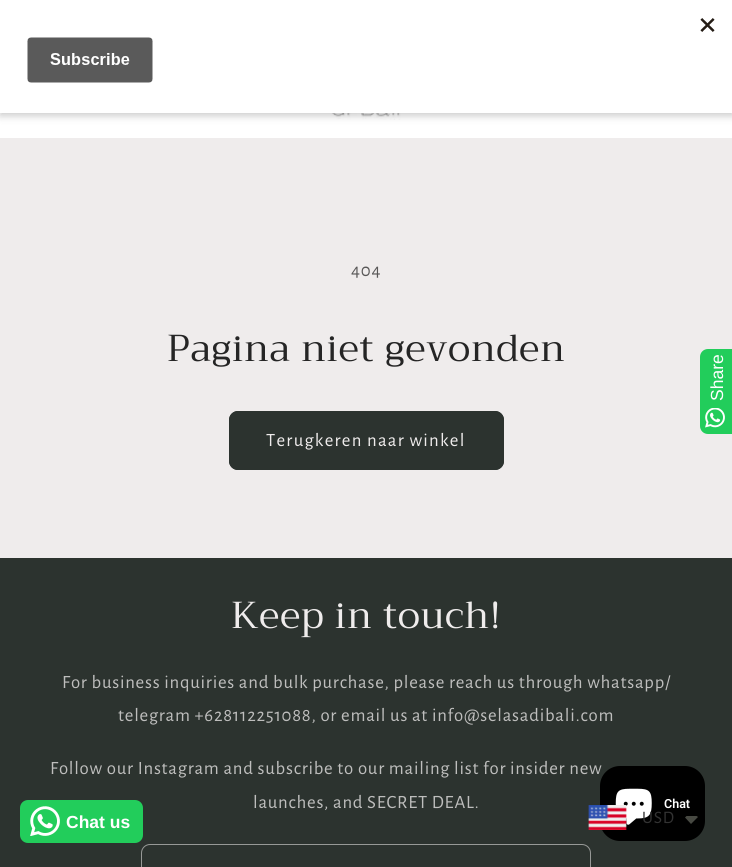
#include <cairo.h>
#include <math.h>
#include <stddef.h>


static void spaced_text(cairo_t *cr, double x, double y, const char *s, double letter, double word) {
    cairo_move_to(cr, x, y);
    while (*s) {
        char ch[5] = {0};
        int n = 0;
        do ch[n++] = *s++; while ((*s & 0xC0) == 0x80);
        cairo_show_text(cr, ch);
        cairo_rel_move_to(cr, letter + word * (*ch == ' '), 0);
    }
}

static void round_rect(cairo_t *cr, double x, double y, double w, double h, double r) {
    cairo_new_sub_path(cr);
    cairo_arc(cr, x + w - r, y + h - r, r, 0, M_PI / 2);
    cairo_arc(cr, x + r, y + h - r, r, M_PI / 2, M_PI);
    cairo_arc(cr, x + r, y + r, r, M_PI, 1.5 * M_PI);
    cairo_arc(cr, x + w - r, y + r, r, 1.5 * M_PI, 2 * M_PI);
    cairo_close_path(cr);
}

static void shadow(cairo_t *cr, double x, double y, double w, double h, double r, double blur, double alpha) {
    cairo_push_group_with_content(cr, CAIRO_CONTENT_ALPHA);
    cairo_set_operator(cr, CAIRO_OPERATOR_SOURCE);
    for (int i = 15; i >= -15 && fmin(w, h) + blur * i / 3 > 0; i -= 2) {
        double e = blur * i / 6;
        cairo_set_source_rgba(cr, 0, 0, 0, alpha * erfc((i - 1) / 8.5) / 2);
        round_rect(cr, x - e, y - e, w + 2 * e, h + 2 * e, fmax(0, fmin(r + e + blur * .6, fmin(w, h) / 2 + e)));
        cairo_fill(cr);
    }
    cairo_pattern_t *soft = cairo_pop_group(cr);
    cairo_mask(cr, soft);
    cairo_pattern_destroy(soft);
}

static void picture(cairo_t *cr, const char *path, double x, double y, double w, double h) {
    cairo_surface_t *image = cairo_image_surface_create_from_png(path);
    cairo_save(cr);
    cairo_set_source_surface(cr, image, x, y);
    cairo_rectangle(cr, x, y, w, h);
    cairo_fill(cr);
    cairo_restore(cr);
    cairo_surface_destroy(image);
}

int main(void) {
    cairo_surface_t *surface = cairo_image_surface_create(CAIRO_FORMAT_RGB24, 732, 867);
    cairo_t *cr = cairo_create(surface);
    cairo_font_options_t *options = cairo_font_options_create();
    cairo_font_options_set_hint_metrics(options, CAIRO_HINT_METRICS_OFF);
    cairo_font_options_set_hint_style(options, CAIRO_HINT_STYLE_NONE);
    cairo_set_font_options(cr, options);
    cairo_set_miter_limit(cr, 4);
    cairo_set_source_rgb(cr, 0.937, 0.925, 0.925);
    cairo_paint(cr);
    cairo_set_source_rgb(cr, 1, 1, 1);
    cairo_rectangle(cr, 0, 113, 732, 25);
    cairo_fill(cr);
    picture(cr, "img2.png", 258, 113, 218, 7);
    cairo_set_source_rgb(cr, 0, 0, 0);
    shadow(cr, 0, 4, 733, 112, 0, 4, 0.2);
    cairo_set_source_rgb(cr, 1, 1, 1);
    cairo_rectangle(cr, 0, 0, 732, 113);
    cairo_fill(cr);
    picture(cr, "img1.png", 27, 18, 688, 65);
    cairo_select_font_face(cr, "Alegreya Sans", CAIRO_FONT_SLANT_NORMAL, CAIRO_FONT_WEIGHT_NORMAL);
    cairo_set_font_size(cr, 18.75);
    cairo_set_source_rgb(cr, 0.345, 0.341, 0.341);
    spaced_text(cr, 351, 276, "404", 0.75, 0);
    cairo_select_font_face(cr, "Trirong", CAIRO_FONT_SLANT_NORMAL, CAIRO_FONT_WEIGHT_NORMAL);
    cairo_set_font_size(cr, 37.5);
    cairo_set_source_rgb(cr, 0.145, 0.145, 0.145);
    spaced_text(cr, 167, 361, "Pagina niet gevonden", 0.75, 0);
    cairo_set_source_rgb(cr, 0.173, 0.2, 0.184);
    round_rect(cr, 229, 411, 275, 59, 9);
    cairo_fill(cr);
    round_rect(cr, 229.5, 411.5, 274, 58, 8.5);
    cairo_set_line_width(cr, 1);
    cairo_stroke(cr);
    cairo_select_font_face(cr, "Alegreya Sans", CAIRO_FONT_SLANT_NORMAL, CAIRO_FONT_WEIGHT_NORMAL);
    cairo_set_font_size(cr, 18.75);
    cairo_set_source_rgb(cr, 0.937, 0.925, 0.925);
    spaced_text(cr, 266, 446, "Terugkeren naar winkel", 1.25, 0);
    cairo_set_source_rgb(cr, 0.133, 0.804, 0.357);
    cairo_new_path(cr);
    cairo_move_to(cr, 708, 349);
    cairo_line_to(cr, 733, 349);
    cairo_line_to(cr, 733, 434);
    cairo_line_to(cr, 708, 434);
    cairo_curve_to(cr, 703.5, 434, 700, 430.5, 700, 426);
    cairo_line_to(cr, 700, 357);
    cairo_curve_to(cr, 700, 352.5, 703.5, 349, 708, 349);
    cairo_close_path(cr);
    cairo_fill(cr);
    cairo_select_font_face(cr, "Liberation Sans", CAIRO_FONT_SLANT_NORMAL, CAIRO_FONT_WEIGHT_NORMAL);
    cairo_set_font_size(cr, 17.5);
    cairo_set_source_rgb(cr, 1, 1, 1);
    cairo_save(cr);
    cairo_translate(cr, 723, 401);
    cairo_rotate(cr, -90 * M_PI / 180);
    cairo_move_to(cr, 0, 0);
    cairo_show_text(cr, "Share");
    cairo_restore(cr);
    picture(cr, "img3.png", 705, 408, 20, 20);
    cairo_set_source_rgb(cr, 0.173, 0.2, 0.184);
    cairo_rectangle(cr, 0, 558, 732, 309);
    cairo_fill(cr);
    cairo_select_font_face(cr, "Trirong", CAIRO_FONT_SLANT_NORMAL, CAIRO_FONT_WEIGHT_NORMAL);
    cairo_set_font_size(cr, 37.5);
    cairo_set_source_rgb(cr, 0.937, 0.925, 0.925);
    spaced_text(cr, 231, 628, "Keep in touch!", 0.75, 0);
    cairo_select_font_face(cr, "Alegreya Sans", CAIRO_FONT_SLANT_NORMAL, CAIRO_FONT_WEIGHT_NORMAL);
    cairo_set_font_size(cr, 18.75);
    cairo_set_source_rgb(cr, 0.745, 0.745, 0.741);
    spaced_text(cr, 62, 688, "For business inquiries and bulk purchase, please reach us through whatsapp/", 0.75, 0);
    spaced_text(cr, 118, 721, "telegram +628112251088, or email us at info@selasadibali.com", 0.75, 0);
    spaced_text(cr, 50, 774, "Follow our Instagram and subscribe to our mailing list for insider new", 0.75, 0);
    spaced_text(cr, 253, 808, "launches, and SECRET DEAL.", 0.75, 0);
    round_rect(cr, 141.5, 844.5, 449, 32, 8.5);
    cairo_set_source_rgb(cr, 0.592, 0.6, 0.592);
    cairo_stroke(cr);
    cairo_set_source_rgb(cr, 0, 0, 0);
    round_rect(cr, 600, 766, 105, 75, 20);
    cairo_fill(cr);
    picture(cr, "img4.png", 615, 788, 37, 37);
    cairo_select_font_face(cr, "Roboto SemiBold", CAIRO_FONT_SLANT_NORMAL, CAIRO_FONT_WEIGHT_NORMAL);
    cairo_set_font_size(cr, 12.5);
    cairo_set_source_rgb(cr, 1, 1, 1);
    cairo_move_to(cr, 664, 808);
    cairo_show_text(cr, "Chat");
    cairo_set_source_rgb(cr, 0.133, 0.804, 0.357);
    round_rect(cr, 20, 800, 123, 43, 8);
    cairo_fill(cr);
    picture(cr, "img5.png", 30, 806, 30, 30);
    cairo_select_font_face(cr, "Liberation Sans", CAIRO_FONT_SLANT_NORMAL, CAIRO_FONT_WEIGHT_BOLD);
    cairo_set_font_size(cr, 17.5);
    cairo_set_source_rgb(cr, 1, 1, 1);
    cairo_move_to(cr, 66, 828);
    cairo_show_text(cr, "Chat us");
    picture(cr, "img6.png", 588, 805, 39, 25);
    cairo_select_font_face(cr, "Alegreya Sans", CAIRO_FONT_SLANT_NORMAL, CAIRO_FONT_WEIGHT_NORMAL);
    cairo_set_source_rgb(cr, 0.2, 0.2, 0.2);
    spaced_text(cr, 642, 823, "USD", 0.75, 0);
    cairo_set_source_rgb(cr, 0.278, 0.286, 0.259);
    cairo_new_path(cr);
    cairo_move_to(cr, 685, 817.5);
    cairo_line_to(cr, 686.5, 816);
    cairo_line_to(cr, 696.5, 816);
    cairo_line_to(cr, 698, 817);
    cairo_line_to(cr, 691, 824);
    cairo_close_path(cr);
    cairo_fill(cr);
    cairo_surface_write_to_png(surface, "page.png");
    cairo_font_options_destroy(options);
    cairo_destroy(cr);
    cairo_surface_destroy(surface);
    return 0;
}
